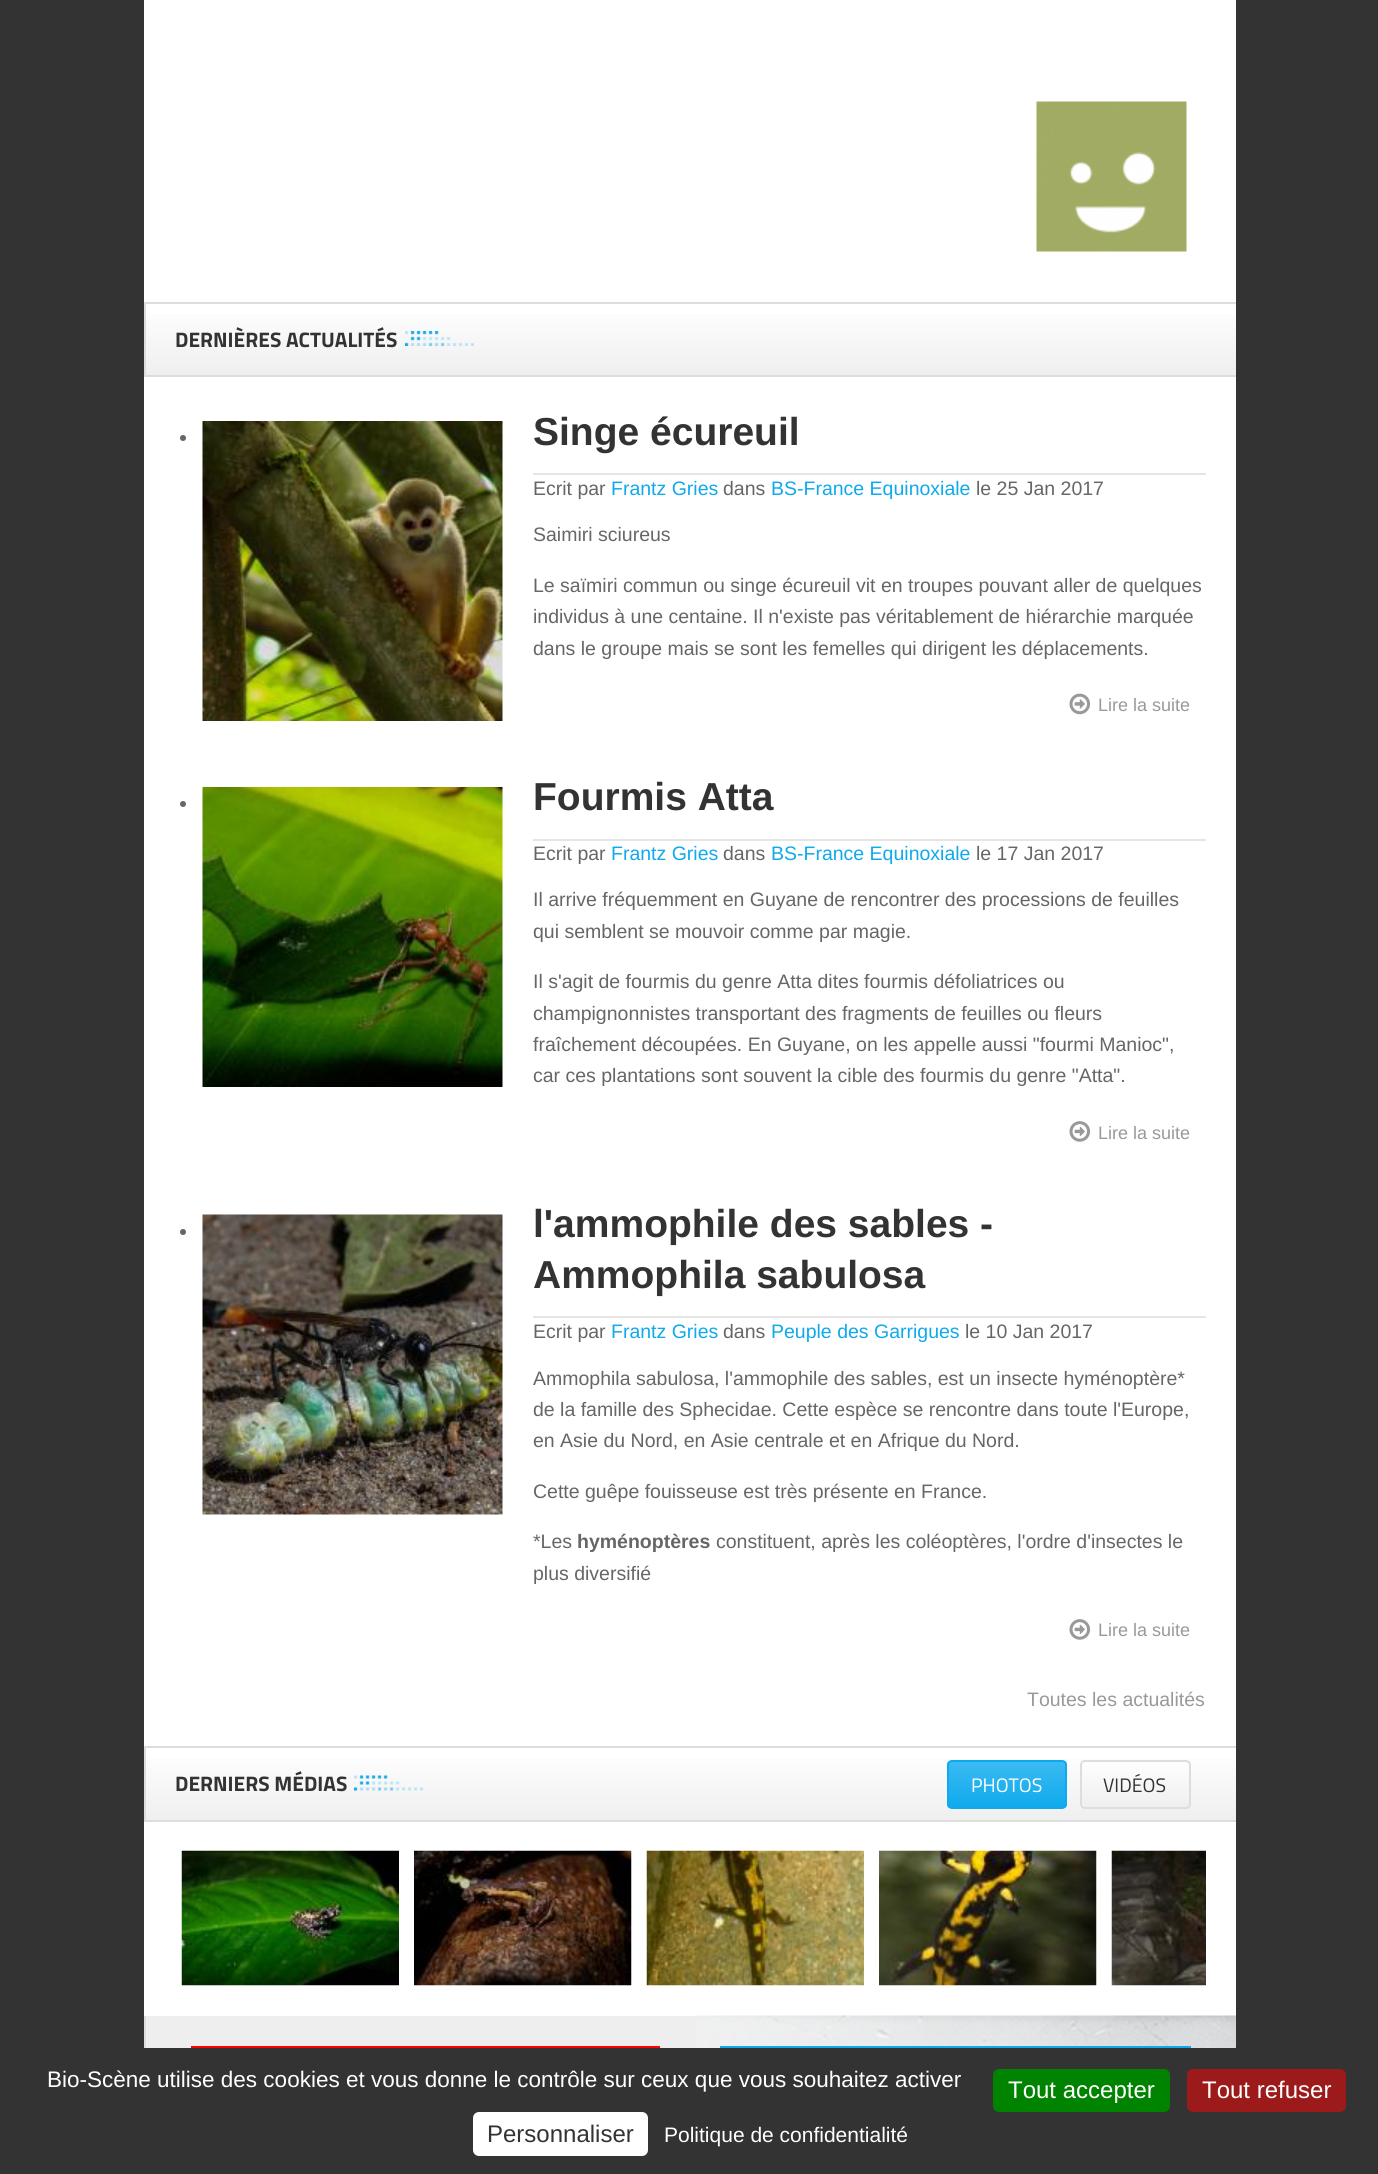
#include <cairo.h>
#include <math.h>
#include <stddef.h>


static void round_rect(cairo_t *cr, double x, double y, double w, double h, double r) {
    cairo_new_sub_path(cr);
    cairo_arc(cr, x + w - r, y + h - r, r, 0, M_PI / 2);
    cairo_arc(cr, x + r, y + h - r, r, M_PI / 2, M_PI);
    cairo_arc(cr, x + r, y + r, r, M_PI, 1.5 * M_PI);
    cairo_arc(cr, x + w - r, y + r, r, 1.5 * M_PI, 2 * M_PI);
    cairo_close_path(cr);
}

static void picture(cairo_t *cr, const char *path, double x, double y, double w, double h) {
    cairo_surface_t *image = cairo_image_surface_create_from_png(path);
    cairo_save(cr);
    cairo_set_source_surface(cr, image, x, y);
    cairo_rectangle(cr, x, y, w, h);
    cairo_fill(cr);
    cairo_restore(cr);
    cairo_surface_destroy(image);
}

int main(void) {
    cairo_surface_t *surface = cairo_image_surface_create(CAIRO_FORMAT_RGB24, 1378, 2174);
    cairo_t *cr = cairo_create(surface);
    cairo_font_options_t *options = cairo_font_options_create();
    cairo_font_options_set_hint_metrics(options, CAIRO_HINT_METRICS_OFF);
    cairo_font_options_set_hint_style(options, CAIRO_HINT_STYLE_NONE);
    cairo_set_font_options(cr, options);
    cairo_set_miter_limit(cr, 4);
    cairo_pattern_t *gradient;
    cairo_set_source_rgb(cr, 0.2, 0.2, 0.2);
    cairo_paint(cr);
    cairo_set_source_rgb(cr, 0.933, 0.933, 0.933);
    cairo_rectangle(cr, 146, 2016, 1090, 32);
    cairo_fill(cr);
    cairo_set_source_rgb(cr, 1, 1, 1);
    cairo_rectangle(cr, 144, 0, 1092, 2016);
    cairo_fill(cr);
    picture(cr, "img1.png", 1036, 101, 151, 151);
    gradient = cairo_pattern_create_linear(691, 303, 691, 375);
    cairo_pattern_add_color_stop_rgba(gradient, 0, 1, 1, 1, 1);
    cairo_pattern_add_color_stop_rgba(gradient, 1, 0.937, 0.937, 0.937, 1);
    cairo_set_source(cr, gradient);
    cairo_pattern_destroy(gradient);
    cairo_rectangle(cr, 146, 314, 1090, 61);
    cairo_fill(cr);
    cairo_set_source_rgb(cr, 0.867, 0.867, 0.867);
    cairo_rectangle(cr, 144, 302, 1092, 2);
    cairo_fill(cr);
    cairo_rectangle(cr, 144, 375, 1092, 2);
    cairo_fill(cr);
    cairo_rectangle(cr, 144, 302, 2, 75);
    cairo_fill(cr);
    cairo_select_font_face(cr, "Titillium Web", CAIRO_FONT_SLANT_NORMAL, CAIRO_FONT_WEIGHT_BOLD);
    cairo_set_font_size(cr, 21);
    cairo_set_source_rgb(cr, 0.2, 0.2, 0.2);
    cairo_move_to(cr, 175, 347);
    cairo_show_text(cr, "DERNIÈRES ACTUALITÉS");
    picture(cr, "img2.png", 405, 331, 69, 15);
    cairo_set_source_rgb(cr, 0.4, 0.4, 0.4);
    cairo_arc(cr, 183, 438, 3, 0, 2 * M_PI);
    cairo_fill(cr);
    cairo_select_font_face(cr, "Liberation Sans", CAIRO_FONT_SLANT_NORMAL, CAIRO_FONT_WEIGHT_BOLD);
    cairo_set_font_size(cr, 39);
    cairo_set_source_rgb(cr, 0.2, 0.2, 0.2);
    cairo_move_to(cr, 533, 445);
    cairo_show_text(cr, "Singe écureuil");
    cairo_set_source_rgb(cr, 0.898, 0.898, 0.898);
    cairo_rectangle(cr, 533, 473, 673, 2);
    cairo_fill(cr);
    cairo_select_font_face(cr, "Liberation Sans", CAIRO_FONT_SLANT_NORMAL, CAIRO_FONT_WEIGHT_NORMAL);
    cairo_set_font_size(cr, 19.5);
    cairo_set_source_rgb(cr, 0.4, 0.4, 0.4);
    cairo_move_to(cr, 533, 495);
    cairo_show_text(cr, "Ecrit par");
    cairo_set_source_rgb(cr, 0.059, 0.663, 0.925);
    cairo_move_to(cr, 611, 495);
    cairo_show_text(cr, "Frantz Gries");
    cairo_set_source_rgb(cr, 0.4, 0.4, 0.4);
    cairo_move_to(cr, 723, 495);
    cairo_show_text(cr, "dans");
    cairo_set_source_rgb(cr, 0.059, 0.663, 0.925);
    cairo_move_to(cr, 771, 495);
    cairo_show_text(cr, "BS-France Equinoxiale");
    cairo_set_source_rgb(cr, 0.4, 0.4, 0.4);
    cairo_move_to(cr, 976, 495);
    cairo_show_text(cr, "le 25 Jan 2017");
    picture(cr, "img3.png", 202, 421, 301, 300);
    cairo_move_to(cr, 533, 541);
    cairo_show_text(cr, "Saimiri sciureus");
    cairo_move_to(cr, 533, 592);
    cairo_show_text(cr, "Le saïmiri commun ou singe écureuil vit en troupes pouvant aller de quelques");
    cairo_move_to(cr, 533, 623);
    cairo_show_text(cr, "individus à une centaine. Il n'existe pas véritablement de hiérarchie marquée");
    cairo_move_to(cr, 533, 655);
    cairo_show_text(cr, "dans le groupe mais se sont les femelles qui dirigent les déplacements.");
    picture(cr, "img4.png", 1069, 693, 22, 22);
    cairo_set_font_size(cr, 18);
    cairo_set_source_rgb(cr, 0.6, 0.6, 0.6);
    cairo_move_to(cr, 1098, 711);
    cairo_show_text(cr, "Lire la suite");
    cairo_set_source_rgb(cr, 0.4, 0.4, 0.4);
    cairo_new_path(cr);
    cairo_arc(cr, 183, 804, 3, 0, 2 * M_PI);
    cairo_fill(cr);
    cairo_select_font_face(cr, "Liberation Sans", CAIRO_FONT_SLANT_NORMAL, CAIRO_FONT_WEIGHT_BOLD);
    cairo_set_font_size(cr, 39);
    cairo_set_source_rgb(cr, 0.2, 0.2, 0.2);
    cairo_move_to(cr, 533, 810);
    cairo_show_text(cr, "Fourmis Atta");
    cairo_set_source_rgb(cr, 0.898, 0.898, 0.898);
    cairo_rectangle(cr, 533, 839, 673, 2);
    cairo_fill(cr);
    cairo_select_font_face(cr, "Liberation Sans", CAIRO_FONT_SLANT_NORMAL, CAIRO_FONT_WEIGHT_NORMAL);
    cairo_set_font_size(cr, 19.5);
    cairo_set_source_rgb(cr, 0.4, 0.4, 0.4);
    cairo_move_to(cr, 533, 860);
    cairo_show_text(cr, "Ecrit par");
    cairo_set_source_rgb(cr, 0.059, 0.663, 0.925);
    cairo_move_to(cr, 611, 860);
    cairo_show_text(cr, "Frantz Gries");
    cairo_set_source_rgb(cr, 0.4, 0.4, 0.4);
    cairo_move_to(cr, 723, 860);
    cairo_show_text(cr, "dans");
    cairo_set_source_rgb(cr, 0.059, 0.663, 0.925);
    cairo_move_to(cr, 771, 860);
    cairo_show_text(cr, "BS-France Equinoxiale");
    cairo_set_source_rgb(cr, 0.4, 0.4, 0.4);
    cairo_move_to(cr, 976, 860);
    cairo_show_text(cr, "le 17 Jan 2017");
    picture(cr, "img5.png", 202, 787, 301, 300);
    cairo_move_to(cr, 533, 906);
    cairo_show_text(cr, "Il arrive fréquemment en Guyane de rencontrer des processions de feuilles");
    cairo_move_to(cr, 533, 938);
    cairo_show_text(cr, "qui semblent se mouvoir comme par magie.");
    cairo_move_to(cr, 533, 988);
    cairo_show_text(cr, "Il s'agit de fourmis du genre Atta dites fourmis défoliatrices ou");
    cairo_move_to(cr, 533, 1020);
    cairo_show_text(cr, "champignonnistes transportant des fragments de feuilles ou fleurs");
    cairo_move_to(cr, 533, 1051);
    cairo_show_text(cr, "fraîchement découpées. En Guyane, on les appelle aussi \"fourmi Manioc\",");
    cairo_move_to(cr, 533, 1082);
    cairo_show_text(cr, "car ces plantations sont souvent la cible des fourmis du genre \"Atta\".");
    picture(cr, "img6.png", 1069, 1121, 22, 21);
    cairo_set_font_size(cr, 18);
    cairo_set_source_rgb(cr, 0.6, 0.6, 0.6);
    cairo_move_to(cr, 1098, 1139);
    cairo_show_text(cr, "Lire la suite");
    cairo_set_source_rgb(cr, 0.4, 0.4, 0.4);
    cairo_new_path(cr);
    cairo_arc(cr, 183, 1232, 3, 0, 2 * M_PI);
    cairo_fill(cr);
    cairo_select_font_face(cr, "Liberation Sans", CAIRO_FONT_SLANT_NORMAL, CAIRO_FONT_WEIGHT_BOLD);
    cairo_set_font_size(cr, 39);
    cairo_set_source_rgb(cr, 0.2, 0.2, 0.2);
    cairo_move_to(cr, 533, 1237);
    cairo_show_text(cr, "l'ammophile des sables -");
    cairo_move_to(cr, 533, 1288);
    cairo_show_text(cr, "Ammophila sabulosa");
    cairo_set_source_rgb(cr, 0.898, 0.898, 0.898);
    cairo_rectangle(cr, 533, 1316, 673, 2);
    cairo_fill(cr);
    cairo_select_font_face(cr, "Liberation Sans", CAIRO_FONT_SLANT_NORMAL, CAIRO_FONT_WEIGHT_NORMAL);
    cairo_set_font_size(cr, 19.5);
    cairo_set_source_rgb(cr, 0.4, 0.4, 0.4);
    cairo_move_to(cr, 533, 1338);
    cairo_show_text(cr, "Ecrit par");
    cairo_set_source_rgb(cr, 0.059, 0.663, 0.925);
    cairo_move_to(cr, 611, 1338);
    cairo_show_text(cr, "Frantz Gries");
    cairo_set_source_rgb(cr, 0.4, 0.4, 0.4);
    cairo_move_to(cr, 723, 1338);
    cairo_show_text(cr, "dans");
    cairo_set_source_rgb(cr, 0.059, 0.663, 0.925);
    cairo_move_to(cr, 771, 1338);
    cairo_show_text(cr, "Peuple des Garrigues");
    cairo_set_source_rgb(cr, 0.4, 0.4, 0.4);
    cairo_move_to(cr, 965, 1338);
    cairo_show_text(cr, "le 10 Jan 2017");
    picture(cr, "img7.png", 202, 1214, 301, 301);
    cairo_move_to(cr, 533, 1385);
    cairo_show_text(cr, "Ammophila sabulosa, l'ammophile des sables, est un insecte hyménoptère*");
    cairo_move_to(cr, 533, 1416);
    cairo_show_text(cr, "de la famille des Sphecidae. Cette espèce se rencontre dans toute l'Europe,");
    cairo_move_to(cr, 533, 1447);
    cairo_show_text(cr, "en Asie du Nord, en Asie centrale et en Afrique du Nord.");
    cairo_move_to(cr, 533, 1498);
    cairo_show_text(cr, "Cette guêpe fouisseuse est très présente en France.");
    cairo_move_to(cr, 533, 1548);
    cairo_show_text(cr, "*Les");
    cairo_select_font_face(cr, "Liberation Sans", CAIRO_FONT_SLANT_NORMAL, CAIRO_FONT_WEIGHT_BOLD);
    cairo_move_to(cr, 577, 1548);
    cairo_show_text(cr, "hyménoptères");
    cairo_select_font_face(cr, "Liberation Sans", CAIRO_FONT_SLANT_NORMAL, CAIRO_FONT_WEIGHT_NORMAL);
    cairo_move_to(cr, 716, 1548);
    cairo_show_text(cr, "constituent, après les coléoptères, l'ordre d'insectes le");
    cairo_move_to(cr, 533, 1580);
    cairo_show_text(cr, "plus diversifié");
    picture(cr, "img6.png", 1069, 1619, 22, 21);
    cairo_set_font_size(cr, 18);
    cairo_set_source_rgb(cr, 0.6, 0.6, 0.6);
    cairo_move_to(cr, 1098, 1636);
    cairo_show_text(cr, "Lire la suite");
    cairo_set_font_size(cr, 19.5);
    cairo_move_to(cr, 1027, 1706);
    cairo_show_text(cr, "Toutes les actualités");
    gradient = cairo_pattern_create_linear(691, 1748, 691, 1820);
    cairo_pattern_add_color_stop_rgba(gradient, 0, 1, 1, 1, 1);
    cairo_pattern_add_color_stop_rgba(gradient, 1, 0.937, 0.937, 0.937, 1);
    cairo_set_source(cr, gradient);
    cairo_pattern_destroy(gradient);
    cairo_rectangle(cr, 146, 1759, 1090, 61);
    cairo_fill(cr);
    cairo_set_source_rgb(cr, 0.867, 0.867, 0.867);
    cairo_rectangle(cr, 144, 1746, 1092, 2);
    cairo_fill(cr);
    cairo_rectangle(cr, 144, 1820, 1092, 2);
    cairo_fill(cr);
    cairo_rectangle(cr, 144, 1746, 2, 75);
    cairo_fill(cr);
    cairo_select_font_face(cr, "Titillium Web", CAIRO_FONT_SLANT_NORMAL, CAIRO_FONT_WEIGHT_BOLD);
    cairo_set_font_size(cr, 21);
    cairo_set_source_rgb(cr, 0.2, 0.2, 0.2);
    cairo_move_to(cr, 175, 1791);
    cairo_show_text(cr, "DERNIERS MÉDIAS");
    picture(cr, "img8.png", 354, 1775, 69, 16);
    cairo_save(cr);
    round_rect(cr, 947, 1760, 120, 49, 5);
    cairo_clip(cr);
    gradient = cairo_pattern_create_linear(1007, 1761, 1007, 1808);
    cairo_pattern_add_color_stop_rgba(gradient, 0, 0.231, 0.733, 0.953, 1);
    cairo_pattern_add_color_stop_rgba(gradient, 1, 0.059, 0.663, 0.925, 1);
    cairo_set_source(cr, gradient);
    cairo_pattern_destroy(gradient);
    cairo_rectangle(cr, 947, 1761, 120, 47);
    cairo_fill(cr);
    cairo_restore(cr);
    round_rect(cr, 948, 1761, 118, 47, 4);
    cairo_set_source_rgb(cr, 0.059, 0.663, 0.925);
    cairo_stroke(cr);
    cairo_select_font_face(cr, "Titillium Web", CAIRO_FONT_SLANT_NORMAL, CAIRO_FONT_WEIGHT_NORMAL);
    cairo_set_font_size(cr, 19.5);
    cairo_set_source_rgb(cr, 1, 1, 1);
    cairo_move_to(cr, 971, 1792);
    cairo_show_text(cr, "PHOTOS");
    cairo_save(cr);
    round_rect(cr, 1080, 1760, 111, 49, 5);
    cairo_clip(cr);
    gradient = cairo_pattern_create_linear(1136, 1761, 1136, 1808);
    cairo_pattern_add_color_stop_rgba(gradient, 0, 0.996, 0.996, 0.996, 1);
    cairo_pattern_add_color_stop_rgba(gradient, 1, 0.937, 0.937, 0.937, 1);
    cairo_set_source(cr, gradient);
    cairo_pattern_destroy(gradient);
    cairo_rectangle(cr, 1080, 1761, 111, 47);
    cairo_fill(cr);
    cairo_restore(cr);
    round_rect(cr, 1081, 1761, 109, 47, 4);
    cairo_set_source_rgb(cr, 0.867, 0.867, 0.867);
    cairo_stroke(cr);
    cairo_set_source_rgb(cr, 0.2, 0.2, 0.2);
    cairo_move_to(cr, 1103, 1792);
    cairo_show_text(cr, "VIDÉOS");
    picture(cr, "img9.png", 181, 1850, 218, 136);
    picture(cr, "img10.png", 414, 1850, 218, 136);
    picture(cr, "img11.png", 646, 1850, 218, 136);
    picture(cr, "img12.png", 879, 1850, 218, 136);
    picture(cr, "img13.png", 1111, 1850, 95, 136);
    picture(cr, "img14.png", 696, 2015, 540, 33);
    cairo_set_source_rgb(cr, 0.867, 0.867, 0.867);
    cairo_rectangle(cr, 144, 2016, 2, 32);
    cairo_fill(cr);
    cairo_set_source_rgb(cr, 1, 0, 0);
    cairo_rectangle(cr, 191, 2046, 469, 2);
    cairo_fill(cr);
    cairo_set_source_rgb(cr, 0.059, 0.663, 0.925);
    cairo_rectangle(cr, 720, 2046, 471, 2);
    cairo_fill(cr);
    cairo_select_font_face(cr, "Liberation Sans", CAIRO_FONT_SLANT_NORMAL, CAIRO_FONT_WEIGHT_NORMAL);
    cairo_set_font_size(cr, 22.5);
    cairo_set_source_rgb(cr, 1, 1, 1);
    cairo_move_to(cr, 47, 2087);
    cairo_show_text(cr, "Bio-Scène utilise des cookies et vous donne le contrôle sur ceux que vous souhaitez activer");
    cairo_set_source_rgb(cr, 0, 0.514, 0);
    round_rect(cr, 993, 2069, 177, 43, 6);
    cairo_fill(cr);
    cairo_set_font_size(cr, 24);
    cairo_set_source_rgb(cr, 1, 1, 1);
    cairo_move_to(cr, 1008, 2098);
    cairo_show_text(cr, "Tout accepter");
    cairo_set_source_rgb(cr, 0.612, 0.102, 0.102);
    round_rect(cr, 1187, 2069, 159, 43, 6);
    cairo_fill(cr);
    cairo_set_source_rgb(cr, 1, 1, 1);
    cairo_move_to(cr, 1202, 2098);
    cairo_show_text(cr, "Tout refuser");
    round_rect(cr, 473, 2112, 175, 44, 6);
    cairo_fill(cr);
    cairo_set_source_rgb(cr, 0.2, 0.2, 0.2);
    cairo_move_to(cr, 487, 2142);
    cairo_show_text(cr, "Personnaliser");
    cairo_set_font_size(cr, 21);
    cairo_set_source_rgb(cr, 1, 1, 1);
    cairo_move_to(cr, 664, 2142);
    cairo_show_text(cr, "Politique de confidentialité");
    cairo_surface_write_to_png(surface, "page.png");
    cairo_font_options_destroy(options);
    cairo_destroy(cr);
    cairo_surface_destroy(surface);
    return 0;
}
